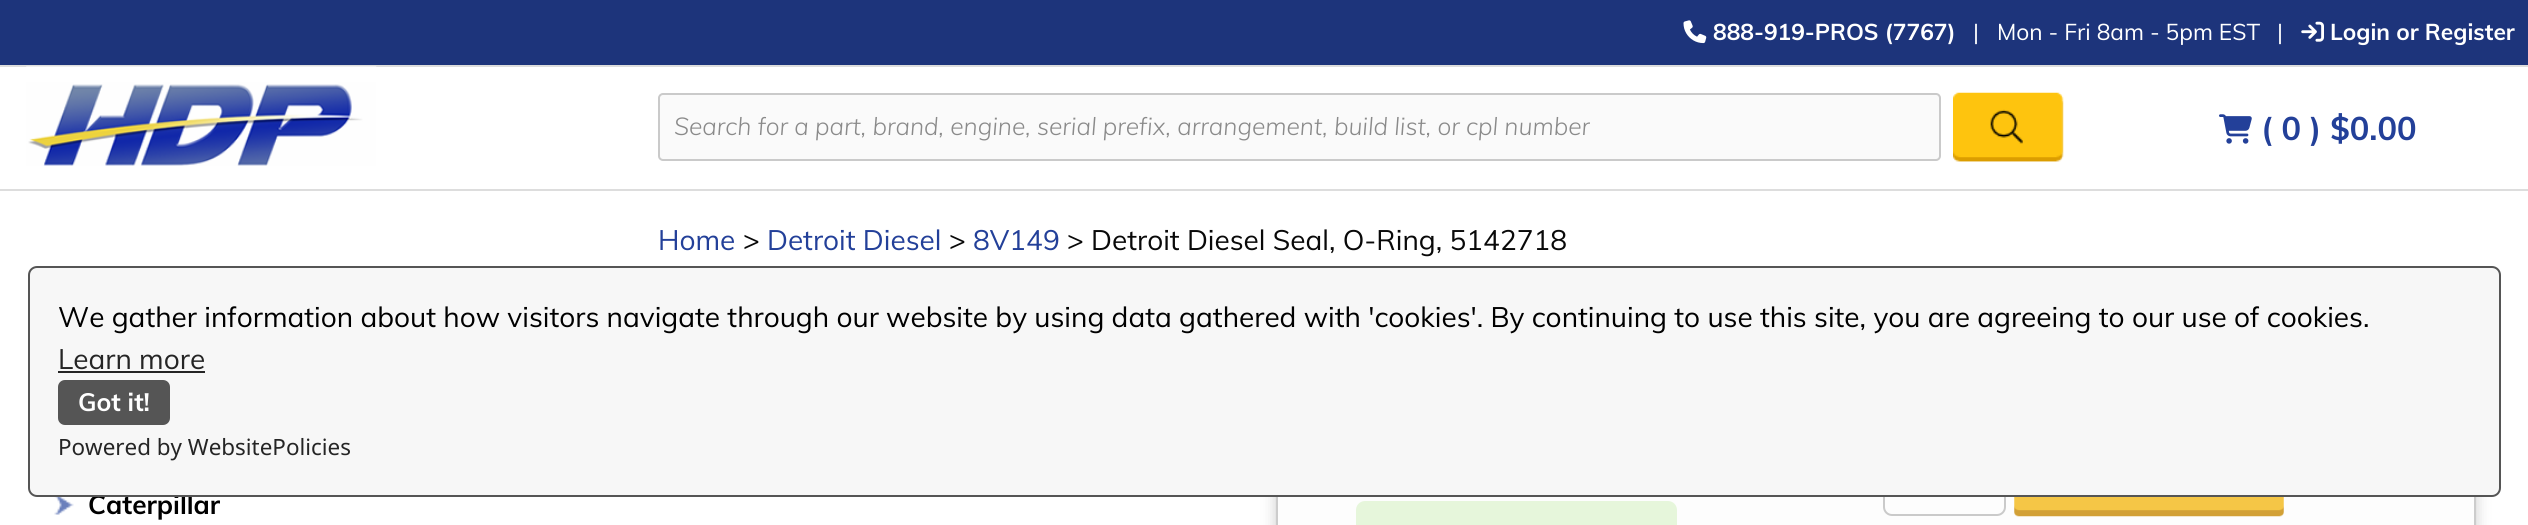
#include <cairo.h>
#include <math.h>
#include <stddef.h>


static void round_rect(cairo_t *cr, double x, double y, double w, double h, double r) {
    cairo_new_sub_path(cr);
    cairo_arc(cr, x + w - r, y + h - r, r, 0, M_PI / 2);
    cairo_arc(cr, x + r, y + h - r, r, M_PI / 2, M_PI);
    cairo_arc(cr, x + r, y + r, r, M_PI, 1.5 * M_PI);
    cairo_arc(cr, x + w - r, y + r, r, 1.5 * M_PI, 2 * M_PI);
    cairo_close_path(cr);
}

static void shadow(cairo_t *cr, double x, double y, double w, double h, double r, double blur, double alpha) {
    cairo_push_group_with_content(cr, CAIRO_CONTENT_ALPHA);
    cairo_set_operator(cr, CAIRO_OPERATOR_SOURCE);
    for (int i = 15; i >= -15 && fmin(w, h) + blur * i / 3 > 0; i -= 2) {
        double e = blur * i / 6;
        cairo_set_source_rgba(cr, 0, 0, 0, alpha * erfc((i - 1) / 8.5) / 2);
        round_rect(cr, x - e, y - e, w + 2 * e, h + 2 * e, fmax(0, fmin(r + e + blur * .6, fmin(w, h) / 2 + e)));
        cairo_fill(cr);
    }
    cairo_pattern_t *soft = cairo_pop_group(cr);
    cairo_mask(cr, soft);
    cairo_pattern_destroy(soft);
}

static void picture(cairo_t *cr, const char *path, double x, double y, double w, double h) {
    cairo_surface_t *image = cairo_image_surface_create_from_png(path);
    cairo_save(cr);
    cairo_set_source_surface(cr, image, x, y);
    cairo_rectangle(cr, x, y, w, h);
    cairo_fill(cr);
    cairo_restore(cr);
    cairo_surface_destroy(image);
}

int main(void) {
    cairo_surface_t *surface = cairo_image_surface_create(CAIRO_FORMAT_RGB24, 2528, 525);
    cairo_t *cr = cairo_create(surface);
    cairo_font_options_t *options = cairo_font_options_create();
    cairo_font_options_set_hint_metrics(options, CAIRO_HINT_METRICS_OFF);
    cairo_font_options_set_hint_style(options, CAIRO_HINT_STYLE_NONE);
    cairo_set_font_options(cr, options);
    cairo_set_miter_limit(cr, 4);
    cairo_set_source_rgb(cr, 1, 1, 1);
    cairo_paint(cr);
    cairo_set_source_rgb(cr, 0.867, 0.867, 0.867);
    cairo_rectangle(cr, 0, 189, 2528, 2);
    cairo_fill(cr);
    cairo_set_source_rgb(cr, 0.114, 0.204, 0.482);
    cairo_rectangle(cr, 0, 0, 2528, 65);
    cairo_fill(cr);
    cairo_set_source_rgb(cr, 0.867, 0.867, 0.867);
    cairo_rectangle(cr, 0, 65, 2528, 2);
    cairo_fill(cr);
    picture(cr, "img1.png", 1683, 20, 24, 24);
    cairo_select_font_face(cr, "Muli", CAIRO_FONT_SLANT_NORMAL, CAIRO_FONT_WEIGHT_BOLD);
    cairo_set_font_size(cr, 22.75);
    cairo_set_source_rgb(cr, 1, 1, 1);
    cairo_move_to(cr, 1713, 40);
    cairo_show_text(cr, "888-919-PROS (7767)");
    cairo_select_font_face(cr, "Muli", CAIRO_FONT_SLANT_NORMAL, CAIRO_FONT_WEIGHT_NORMAL);
    cairo_move_to(cr, 1973, 40);
    cairo_show_text(cr, "|");
    cairo_move_to(cr, 1997, 40);
    cairo_show_text(cr, "Mon - Fri 8am - 5pm EST");
    cairo_move_to(cr, 2277, 40);
    cairo_show_text(cr, "|");
    picture(cr, "img2.png", 2301, 21, 23, 21);
    cairo_select_font_face(cr, "Muli", CAIRO_FONT_SLANT_NORMAL, CAIRO_FONT_WEIGHT_BOLD);
    cairo_move_to(cr, 2330, 40);
    cairo_show_text(cr, "Login or Register");
    picture(cr, "img3.png", 26, 66, 351, 100);
    cairo_set_source_rgb(cr, 0.98, 0.98, 0.98);
    round_rect(cr, 659, 94, 1281, 66, 4);
    cairo_fill_preserve(cr);
    cairo_set_source_rgb(cr, 0.792, 0.792, 0.792);
    cairo_stroke(cr);
    cairo_select_font_face(cr, "Muli Light", CAIRO_FONT_SLANT_ITALIC, CAIRO_FONT_WEIGHT_NORMAL);
    cairo_set_font_size(cr, 24.5);
    cairo_set_source_rgb(cr, 0.541, 0.541, 0.541);
    cairo_move_to(cr, 674, 135);
    cairo_show_text(cr, "Search for a part, brand, engine, serial prefix, arrangement, build list, or cpl number");
    picture(cr, "img4.png", 1953, 92, 111, 70);
    picture(cr, "img5.png", 2219, 114, 33, 30);
    cairo_select_font_face(cr, "Muli", CAIRO_FONT_SLANT_NORMAL, CAIRO_FONT_WEIGHT_BOLD);
    cairo_set_font_size(cr, 32.5);
    cairo_set_source_rgb(cr, 0.137, 0.251, 0.6);
    cairo_move_to(cr, 2261, 140);
    cairo_show_text(cr, "( 0 ) $0.00");
    cairo_select_font_face(cr, "Muli", CAIRO_FONT_SLANT_NORMAL, CAIRO_FONT_WEIGHT_NORMAL);
    cairo_set_font_size(cr, 28);
    cairo_move_to(cr, 658, 250);
    cairo_show_text(cr, "Home");
    cairo_set_source_rgb(cr, 0.039, 0.039, 0.039);
    cairo_move_to(cr, 743, 250);
    cairo_show_text(cr, ">");
    cairo_set_source_rgb(cr, 0.137, 0.251, 0.6);
    cairo_move_to(cr, 767, 250);
    cairo_show_text(cr, "Detroit Diesel");
    cairo_set_source_rgb(cr, 0.039, 0.039, 0.039);
    cairo_move_to(cr, 949, 250);
    cairo_show_text(cr, ">");
    cairo_set_source_rgb(cr, 0.137, 0.251, 0.6);
    cairo_move_to(cr, 973, 250);
    cairo_show_text(cr, "8V149");
    cairo_set_source_rgb(cr, 0.039, 0.039, 0.039);
    cairo_move_to(cr, 1067, 250);
    cairo_show_text(cr, "> Detroit Diesel Seal, O-Ring, 5142718");
    cairo_set_source_rgb(cr, 0.8, 0.8, 0.8);
    shadow(cr, 1276, 361, 1200, 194, 9, 7, 1);
    cairo_set_source_rgb(cr, 0.992, 0.992, 0.992);
    cairo_rectangle(cr, 1278, 497, 1196, 28);
    cairo_fill(cr);
    cairo_rectangle(cr, 1277, 362, 1198, 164);
    cairo_set_source_rgb(cr, 0.8, 0.8, 0.8);
    cairo_stroke(cr);
    cairo_set_source_rgb(cr, 0.902, 0.961, 0.859);
    round_rect(cr, 1356, 501, 321, 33, 9);
    cairo_fill(cr);
    round_rect(cr, 1884, 439, 121, 76, 8);
    cairo_set_source_rgb(cr, 0.792, 0.792, 0.792);
    cairo_stroke(cr);
    picture(cr, "img6.png", 2014, 497, 270, 20);
    picture(cr, "img7.png", 54, 497, 20, 18);
    cairo_select_font_face(cr, "Muli", CAIRO_FONT_SLANT_NORMAL, CAIRO_FONT_WEIGHT_BOLD);
    cairo_set_font_size(cr, 26.25);
    cairo_set_source_rgb(cr, 0, 0, 0);
    cairo_move_to(cr, 88, 514);
    cairo_show_text(cr, "Caterpillar");
    cairo_set_source_rgb(cr, 0.965, 0.965, 0.965);
    round_rect(cr, 29, 267, 2471, 229, 8);
    cairo_fill_preserve(cr);
    cairo_set_source_rgb(cr, 0.333, 0.333, 0.333);
    cairo_stroke(cr);
    cairo_select_font_face(cr, "Muli", CAIRO_FONT_SLANT_NORMAL, CAIRO_FONT_WEIGHT_NORMAL);
    cairo_set_font_size(cr, 28);
    cairo_set_source_rgb(cr, 0, 0, 0);
    cairo_move_to(cr, 58, 327);
    cairo_show_text(cr, "We gather information about how visitors navigate through our website by using data gathered with 'cookies'. By continuing to use this site, you are agreeing to our use of cookies.");
    cairo_set_source_rgb(cr, 0.145, 0.145, 0.145);
    cairo_move_to(cr, 58, 369);
    cairo_show_text(cr, "Learn more");
    cairo_rectangle(cr, 58, 371, 147, 2);
    cairo_fill(cr);
    cairo_set_source_rgb(cr, 0.333, 0.333, 0.333);
    round_rect(cr, 58, 380, 112, 45, 7);
    cairo_fill(cr);
    cairo_select_font_face(cr, "Muli", CAIRO_FONT_SLANT_NORMAL, CAIRO_FONT_WEIGHT_BOLD);
    cairo_set_font_size(cr, 25);
    cairo_set_source_rgb(cr, 1, 1, 1);
    cairo_move_to(cr, 78, 411);
    cairo_show_text(cr, "Got it!");
    cairo_select_font_face(cr, "Noto Sans", CAIRO_FONT_SLANT_NORMAL, CAIRO_FONT_WEIGHT_NORMAL);
    cairo_set_font_size(cr, 22.4);
    cairo_set_source_rgb(cr, 0.145, 0.145, 0.145);
    cairo_move_to(cr, 58, 455);
    cairo_show_text(cr, "Powered by WebsitePolicies");
    cairo_surface_write_to_png(surface, "page.png");
    cairo_font_options_destroy(options);
    cairo_destroy(cr);
    cairo_surface_destroy(surface);
    return 0;
}
